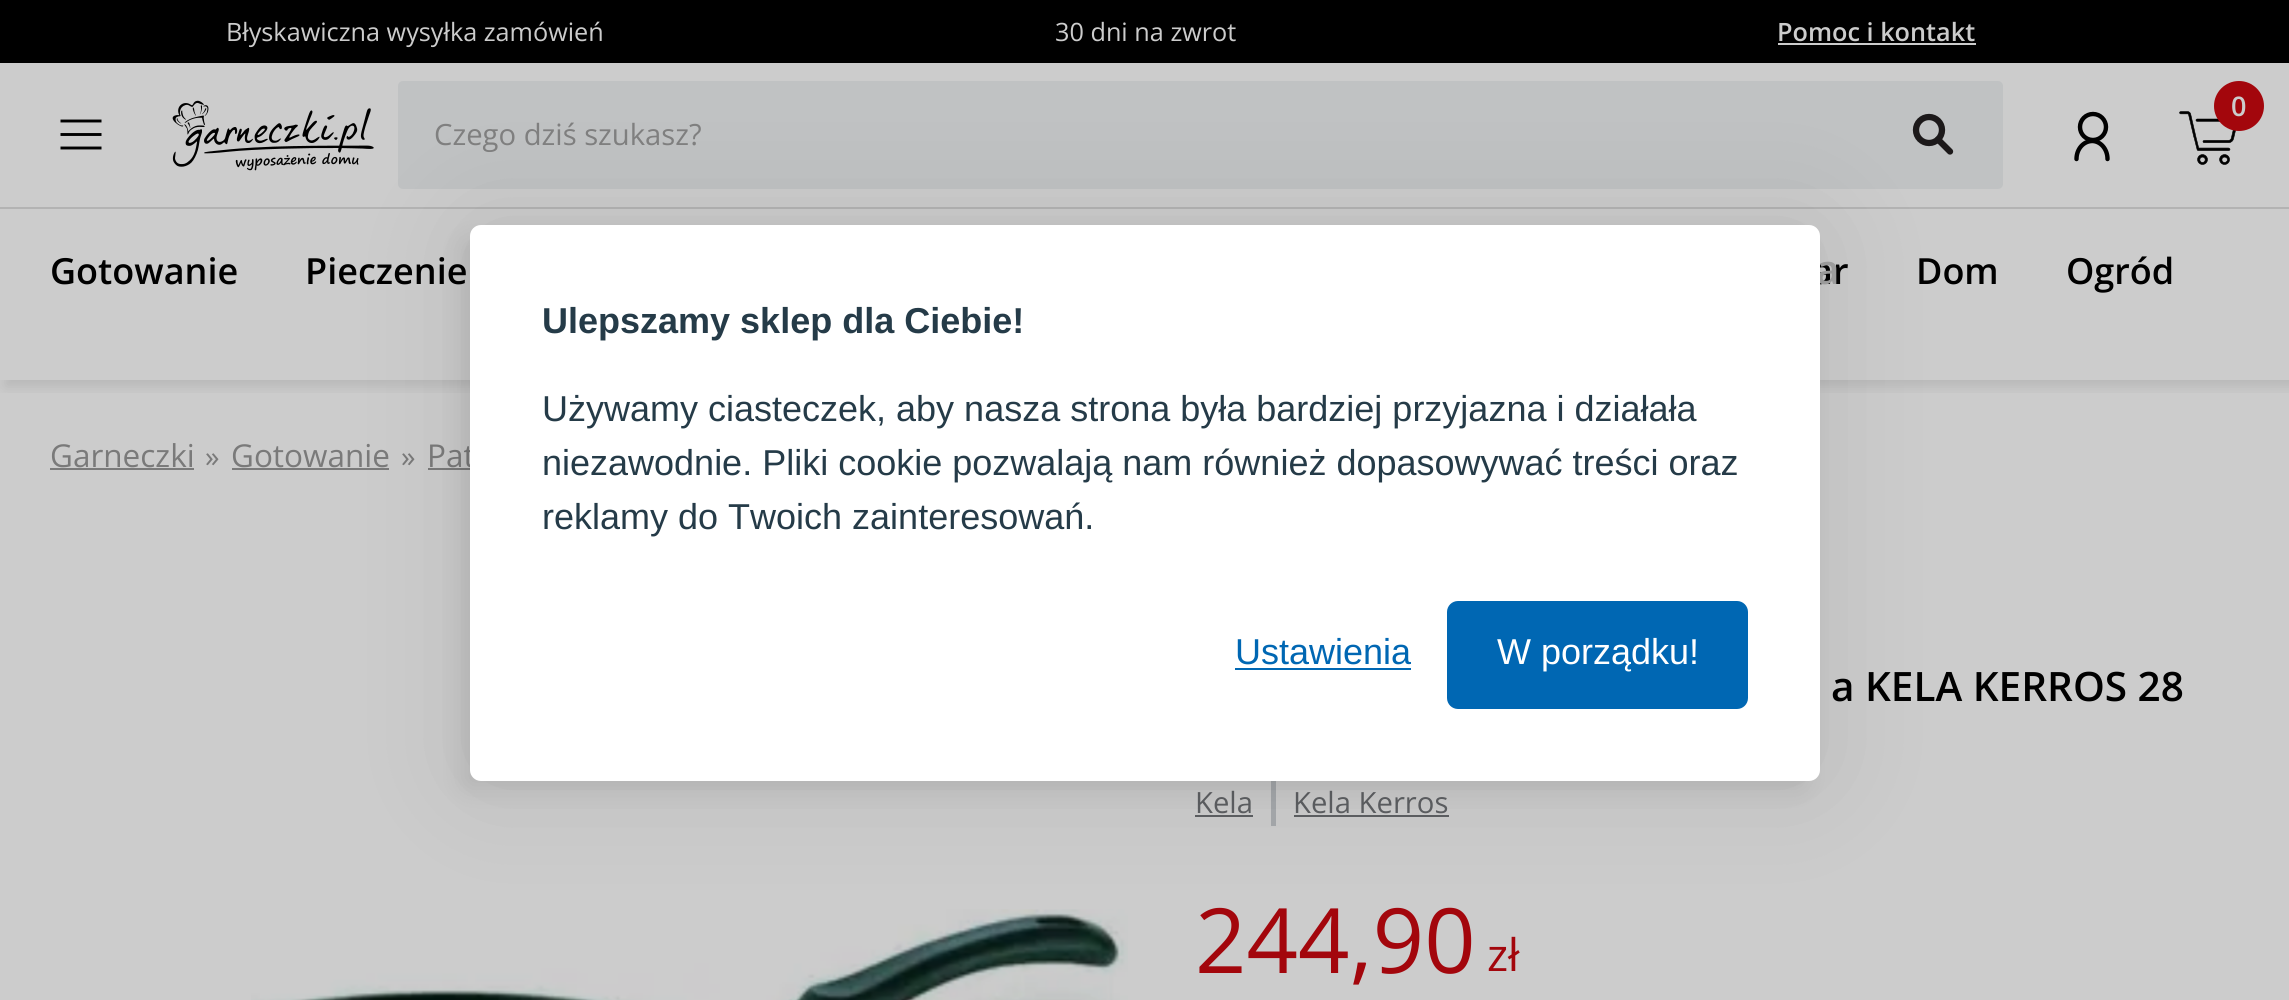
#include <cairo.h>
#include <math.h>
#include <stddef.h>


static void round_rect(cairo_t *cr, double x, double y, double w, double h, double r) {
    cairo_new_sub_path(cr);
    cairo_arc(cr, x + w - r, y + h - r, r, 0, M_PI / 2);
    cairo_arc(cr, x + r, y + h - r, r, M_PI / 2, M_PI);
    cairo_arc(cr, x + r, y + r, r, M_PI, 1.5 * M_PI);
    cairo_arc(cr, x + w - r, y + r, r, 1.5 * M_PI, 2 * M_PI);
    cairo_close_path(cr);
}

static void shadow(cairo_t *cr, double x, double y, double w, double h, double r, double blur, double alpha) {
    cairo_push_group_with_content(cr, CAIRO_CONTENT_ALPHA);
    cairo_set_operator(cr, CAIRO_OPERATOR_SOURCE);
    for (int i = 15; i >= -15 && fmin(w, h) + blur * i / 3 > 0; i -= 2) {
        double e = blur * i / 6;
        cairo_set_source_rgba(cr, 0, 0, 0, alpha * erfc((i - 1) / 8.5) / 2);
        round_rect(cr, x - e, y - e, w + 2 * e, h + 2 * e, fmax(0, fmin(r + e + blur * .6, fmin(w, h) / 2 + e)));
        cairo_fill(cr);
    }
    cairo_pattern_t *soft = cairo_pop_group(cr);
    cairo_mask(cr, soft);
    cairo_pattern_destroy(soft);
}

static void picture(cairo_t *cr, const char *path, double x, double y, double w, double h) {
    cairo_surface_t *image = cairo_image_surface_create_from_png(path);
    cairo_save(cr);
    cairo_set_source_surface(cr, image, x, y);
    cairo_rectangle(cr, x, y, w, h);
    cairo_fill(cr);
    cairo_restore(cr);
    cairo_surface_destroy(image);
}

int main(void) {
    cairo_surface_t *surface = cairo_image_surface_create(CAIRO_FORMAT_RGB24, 2289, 1000);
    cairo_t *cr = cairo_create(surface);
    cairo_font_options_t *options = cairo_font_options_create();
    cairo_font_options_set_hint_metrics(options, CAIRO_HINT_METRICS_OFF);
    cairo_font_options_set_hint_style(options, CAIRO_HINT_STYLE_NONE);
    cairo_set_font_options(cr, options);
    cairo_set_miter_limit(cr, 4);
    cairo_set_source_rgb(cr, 0.8, 0.8, 0.8);
    cairo_paint(cr);
    cairo_save(cr);
    cairo_rectangle(cr, 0, 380, 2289, 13);
    cairo_clip(cr);
    cairo_set_source_rgb(cr, 0, 0, 0);
    shadow(cr, 5, 7, 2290, 380, 0, 7, 0.1);
    cairo_restore(cr);
    cairo_set_source_rgb(cr, 0, 0, 0);
    cairo_rectangle(cr, 0, 0, 2289, 63);
    cairo_fill(cr);
    cairo_select_font_face(cr, "Open Sans", CAIRO_FONT_SLANT_NORMAL, CAIRO_FONT_WEIGHT_NORMAL);
    cairo_set_font_size(cr, 25.25);
    cairo_set_source_rgb(cr, 0.8, 0.8, 0.8);
    cairo_move_to(cr, 226, 41);
    cairo_show_text(cr, "Błyskawiczna wysyłka zamówień");
    cairo_move_to(cr, 1055, 41);
    cairo_show_text(cr, "30 dni na zwrot");
    cairo_select_font_face(cr, "Open Sans SemiBold", CAIRO_FONT_SLANT_NORMAL, CAIRO_FONT_WEIGHT_NORMAL);
    cairo_move_to(cr, 1777, 41);
    cairo_show_text(cr, "Pomoc i kontakt");
    cairo_rectangle(cr, 1778, 43, 198, 2);
    cairo_fill(cr);
    picture(cr, "img1.png", 2179, 111, 57, 54);
    cairo_set_source_rgb(cr, 0.639, 0.027, 0.047);
    cairo_arc(cr, 2239, 106, 25, 0, 2 * M_PI);
    cairo_fill(cr);
    cairo_set_font_size(cr, 27);
    cairo_set_source_rgb(cr, 0.8, 0.8, 0.8);
    cairo_move_to(cr, 2231, 116);
    cairo_show_text(cr, "0");
    cairo_new_path(cr);
    cairo_arc(cr, 2093, 127, 13, 0, 2 * M_PI);
    cairo_set_source_rgb(cr, 0, 0, 0);
    cairo_set_line_width(cr, 4.4);
    cairo_stroke(cr);
    cairo_new_path(cr);
    cairo_move_to(cr, 2076.5, 159);
    cairo_curve_to(cr, 2076.5, 149, 2083.5, 141, 2092.5, 141);
    cairo_move_to(cr, 2107.5, 159);
    cairo_curve_to(cr, 2107.5, 149, 2100.5, 141, 2092, 141);
    cairo_set_line_cap(cr, CAIRO_LINE_CAP_ROUND);
    cairo_set_line_join(cr, CAIRO_LINE_JOIN_ROUND);
    cairo_stroke(cr);
    cairo_new_path(cr);
    cairo_move_to(cr, 60.5, 121);
    cairo_line_to(cr, 101.5, 121);
    cairo_move_to(cr, 60.5, 134.5);
    cairo_line_to(cr, 101.5, 134.5);
    cairo_move_to(cr, 60.5, 148);
    cairo_line_to(cr, 101.5, 148);
    cairo_set_line_width(cr, 2.9);
    cairo_set_line_cap(cr, CAIRO_LINE_CAP_BUTT);
    cairo_set_line_join(cr, CAIRO_LINE_JOIN_MITER);
    cairo_stroke(cr);
    picture(cr, "img2.png", 172, 100, 202, 71);
    cairo_set_source_rgb(cr, 0.753, 0.761, 0.765);
    round_rect(cr, 398, 81, 1605, 108, 5);
    cairo_fill(cr);
    cairo_arc(cr, 1929, 130, 13, 0, 2 * M_PI);
    cairo_set_source_rgb(cr, 0.11, 0.098, 0.102);
    cairo_set_line_width(cr, 6.3);
    cairo_stroke(cr);
    cairo_new_path(cr);
    cairo_move_to(cr, 1938, 139.5);
    cairo_line_to(cr, 1950, 151.5);
    cairo_set_line_cap(cr, CAIRO_LINE_CAP_ROUND);
    cairo_set_line_join(cr, CAIRO_LINE_JOIN_ROUND);
    cairo_stroke(cr);
    cairo_select_font_face(cr, "Open Sans", CAIRO_FONT_SLANT_NORMAL, CAIRO_FONT_WEIGHT_NORMAL);
    cairo_set_font_size(cr, 29.25);
    cairo_set_source_rgb(cr, 0.502, 0.502, 0.502);
    cairo_move_to(cr, 434, 145);
    cairo_show_text(cr, "Czego dziś szukasz?");
    cairo_set_source_rgb(cr, 0.702, 0.702, 0.702);
    cairo_rectangle(cr, 0, 207, 2289, 2);
    cairo_fill(cr);
    cairo_select_font_face(cr, "Open Sans SemiBold", CAIRO_FONT_SLANT_NORMAL, CAIRO_FONT_WEIGHT_NORMAL);
    cairo_set_font_size(cr, 36);
    cairo_set_source_rgb(cr, 0, 0, 0);
    cairo_move_to(cr, 50, 284);
    cairo_show_text(cr, "Gotowanie");
    cairo_move_to(cr, 305, 284);
    cairo_show_text(cr, "Pieczenie");
    cairo_move_to(cr, 1812, 284);
    cairo_show_text(cr, "ar");
    cairo_move_to(cr, 1916, 284);
    cairo_show_text(cr, "Dom");
    cairo_move_to(cr, 2066, 284);
    cairo_show_text(cr, "Ogród");
    cairo_select_font_face(cr, "Open Sans", CAIRO_FONT_SLANT_NORMAL, CAIRO_FONT_WEIGHT_NORMAL);
    cairo_set_font_size(cr, 31.5);
    cairo_set_source_rgb(cr, 0.478, 0.478, 0.478);
    cairo_move_to(cr, 50, 467);
    cairo_show_text(cr, "Garneczki");
    cairo_rectangle(cr, 50, 468, 144, 2);
    cairo_fill(cr);
    cairo_set_font_size(cr, 29.25);
    cairo_move_to(cr, 205, 467);
    cairo_show_text(cr, "»");
    cairo_set_font_size(cr, 31.5);
    cairo_move_to(cr, 231, 467);
    cairo_show_text(cr, "Gotowanie");
    cairo_rectangle(cr, 232, 468, 157, 2);
    cairo_fill(cr);
    cairo_set_font_size(cr, 29.25);
    cairo_move_to(cr, 401, 467);
    cairo_show_text(cr, "»");
    cairo_set_font_size(cr, 31.5);
    cairo_move_to(cr, 427, 467);
    cairo_show_text(cr, "Pat");
    cairo_rectangle(cr, 428, 468, 42, 2);
    cairo_fill(cr);
    picture(cr, "img3.png", 251, 909, 877, 91);
    cairo_select_font_face(cr, "Open Sans SemiBold", CAIRO_FONT_SLANT_NORMAL, CAIRO_FONT_WEIGHT_NORMAL);
    cairo_set_font_size(cr, 40.5);
    cairo_set_source_rgb(cr, 0, 0, 0);
    cairo_move_to(cr, 1831, 701);
    cairo_show_text(cr, "a KELA KERROS 28");
    cairo_select_font_face(cr, "Open Sans", CAIRO_FONT_SLANT_NORMAL, CAIRO_FONT_WEIGHT_NORMAL);
    cairo_set_font_size(cr, 29.25);
    cairo_set_source_rgb(cr, 0.365, 0.373, 0.384);
    cairo_move_to(cr, 1195, 813);
    cairo_show_text(cr, "Kela");
    cairo_rectangle(cr, 1195, 815, 58, 2);
    cairo_fill(cr);
    cairo_set_source_rgb(cr, 0.651, 0.663, 0.675);
    cairo_rectangle(cr, 1271, 776, 5, 50);
    cairo_fill(cr);
    cairo_set_source_rgb(cr, 0.365, 0.373, 0.384);
    cairo_move_to(cr, 1293, 813);
    cairo_show_text(cr, "Kela Kerros");
    cairo_rectangle(cr, 1294, 815, 155, 2);
    cairo_fill(cr);
    cairo_set_font_size(cr, 90);
    cairo_set_source_rgb(cr, 0.639, 0.027, 0.047);
    cairo_move_to(cr, 1195, 973);
    cairo_show_text(cr, "244,90");
    cairo_set_font_size(cr, 45);
    cairo_move_to(cr, 1487, 971);
    cairo_show_text(cr, "zł");
    cairo_select_font_face(cr, "Open Sans SemiBold", CAIRO_FONT_SLANT_NORMAL, CAIRO_FONT_WEIGHT_NORMAL);
    cairo_set_font_size(cr, 40.5);
    cairo_set_source_rgb(cr, 0.635, 0.635, 0.635);
    cairo_move_to(cr, 1816, 284);
    cairo_show_text(cr, "a");
    cairo_set_source_rgb(cr, 0, 0, 0);
    shadow(cr, 470, 225, 1350, 556, 11, 56, 0.1);
    shadow(cr, 459, 236, 1350, 556, 11, 11, 0.07);
    cairo_set_source_rgb(cr, 1, 1, 1);
    round_rect(cr, 470, 225, 1350, 556, 11);
    cairo_fill(cr);
    cairo_select_font_face(cr, "Liberation Sans", CAIRO_FONT_SLANT_NORMAL, CAIRO_FONT_WEIGHT_BOLD);
    cairo_set_font_size(cr, 36);
    cairo_set_source_rgb(cr, 0.145, 0.231, 0.282);
    cairo_move_to(cr, 542, 333);
    cairo_show_text(cr, "Ulepszamy sklep dla Ciebie!");
    cairo_select_font_face(cr, "Liberation Sans", CAIRO_FONT_SLANT_NORMAL, CAIRO_FONT_WEIGHT_NORMAL);
    cairo_move_to(cr, 542, 421);
    cairo_show_text(cr, "Używamy ciasteczek, aby nasza strona była bardziej przyjazna i działała");
    cairo_move_to(cr, 542, 475);
    cairo_show_text(cr, "niezawodnie. Pliki cookie pozwalają nam również dopasowywać treści oraz");
    cairo_move_to(cr, 542, 529);
    cairo_show_text(cr, "reklamy do Twoich zainteresowań.");
    cairo_set_source_rgb(cr, 0, 0.404, 0.702);
    cairo_move_to(cr, 1235, 664);
    cairo_show_text(cr, "Ustawienia");
    cairo_rectangle(cr, 1235, 668, 176, 2);
    cairo_fill(cr);
    round_rect(cr, 1449.5, 603.5, 296, 103, 8.5);
    cairo_fill_preserve(cr);
    cairo_set_line_width(cr, 5);
    cairo_set_line_cap(cr, CAIRO_LINE_CAP_BUTT);
    cairo_set_line_join(cr, CAIRO_LINE_JOIN_MITER);
    cairo_stroke(cr);
    cairo_set_source_rgb(cr, 1, 1, 1);
    cairo_move_to(cr, 1497, 664);
    cairo_show_text(cr, "W porządku!");
    cairo_surface_write_to_png(surface, "page.png");
    cairo_font_options_destroy(options);
    cairo_destroy(cr);
    cairo_surface_destroy(surface);
    return 0;
}
